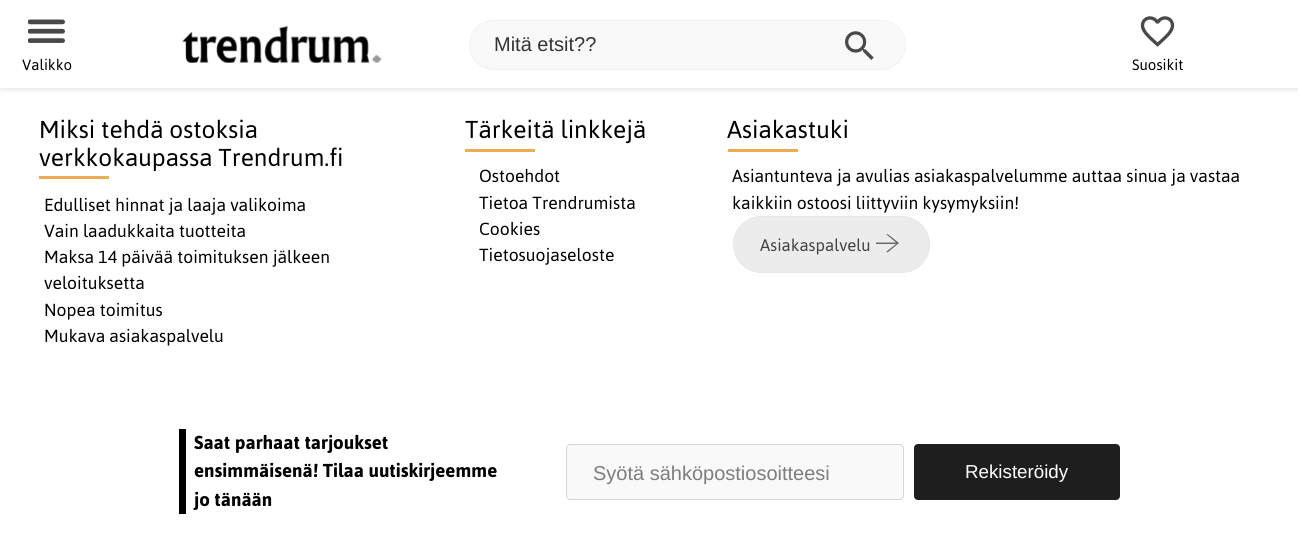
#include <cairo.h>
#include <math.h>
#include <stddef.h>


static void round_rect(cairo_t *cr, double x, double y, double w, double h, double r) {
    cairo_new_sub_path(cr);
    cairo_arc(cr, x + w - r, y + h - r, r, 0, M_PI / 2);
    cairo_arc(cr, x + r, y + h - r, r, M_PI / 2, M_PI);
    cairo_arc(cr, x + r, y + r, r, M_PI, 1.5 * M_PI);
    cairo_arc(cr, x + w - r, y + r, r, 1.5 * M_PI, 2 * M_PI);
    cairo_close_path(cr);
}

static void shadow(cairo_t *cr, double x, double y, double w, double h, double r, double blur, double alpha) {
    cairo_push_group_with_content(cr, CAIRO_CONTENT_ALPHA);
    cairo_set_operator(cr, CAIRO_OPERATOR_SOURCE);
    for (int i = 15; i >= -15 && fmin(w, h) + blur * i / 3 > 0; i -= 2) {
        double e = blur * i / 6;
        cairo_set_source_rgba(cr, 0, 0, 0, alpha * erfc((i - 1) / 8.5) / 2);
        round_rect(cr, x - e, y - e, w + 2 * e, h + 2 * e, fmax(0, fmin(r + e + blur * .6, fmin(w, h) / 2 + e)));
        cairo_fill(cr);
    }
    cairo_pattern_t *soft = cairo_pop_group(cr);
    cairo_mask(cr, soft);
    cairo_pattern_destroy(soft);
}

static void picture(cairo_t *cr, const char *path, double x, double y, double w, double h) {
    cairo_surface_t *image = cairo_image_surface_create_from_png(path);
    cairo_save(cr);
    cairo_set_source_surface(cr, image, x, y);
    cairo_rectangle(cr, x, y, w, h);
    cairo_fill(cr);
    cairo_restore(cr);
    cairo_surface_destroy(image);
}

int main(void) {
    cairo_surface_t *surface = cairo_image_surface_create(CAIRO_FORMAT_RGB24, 1298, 547);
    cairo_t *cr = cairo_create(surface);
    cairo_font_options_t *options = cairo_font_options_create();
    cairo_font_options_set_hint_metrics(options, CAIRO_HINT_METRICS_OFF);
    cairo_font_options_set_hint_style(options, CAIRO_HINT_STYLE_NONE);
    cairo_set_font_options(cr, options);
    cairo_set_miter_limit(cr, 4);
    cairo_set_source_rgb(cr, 1, 1, 1);
    cairo_paint(cr);
    cairo_save(cr);
    cairo_set_fill_rule(cr, CAIRO_FILL_RULE_EVEN_ODD);
    cairo_new_path(cr);
    cairo_move_to(cr, 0, 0);
    cairo_line_to(cr, 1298, 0);
    cairo_line_to(cr, 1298, 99);
    cairo_line_to(cr, 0, 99);
    cairo_close_path(cr);
    cairo_move_to(cr, 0, 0);
    cairo_line_to(cr, 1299, 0);
    cairo_line_to(cr, 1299, 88);
    cairo_line_to(cr, 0, 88);
    cairo_close_path(cr);
    cairo_clip(cr);
    cairo_set_source_rgb(cr, 0.725, 0.725, 0.725);
    shadow(cr, 1, 1, 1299, 88, 0, 3, 0.45);
    cairo_restore(cr);
    cairo_set_source_rgba(cr, 1, 1, 1, 0.77);
    cairo_rectangle(cr, 0, 87, 1298, 1);
    cairo_fill(cr);
    picture(cr, "img1.png", 182, 25, 200, 38);
    cairo_set_source_rgb(cr, 0.976, 0.976, 0.976);
    round_rect(cr, 469.5, 20.5, 436, 49, 24.5);
    cairo_fill_preserve(cr);
    cairo_set_source_rgb(cr, 0.945, 0.945, 0.945);
    cairo_set_line_width(cr, 1);
    cairo_stroke(cr);
    cairo_select_font_face(cr, "Liberation Sans", CAIRO_FONT_SLANT_NORMAL, CAIRO_FONT_WEIGHT_NORMAL);
    cairo_set_font_size(cr, 20);
    cairo_set_source_rgb(cr, 0.2, 0.2, 0.2);
    cairo_move_to(cr, 494, 51);
    cairo_show_text(cr, "Mitä etsit?\077");
    picture(cr, "img2.png", 845, 31, 29, 29);
    picture(cr, "img3.png", 28, 19, 37, 24);
    cairo_select_font_face(cr, "Asap", CAIRO_FONT_SLANT_NORMAL, CAIRO_FONT_WEIGHT_NORMAL);
    cairo_set_font_size(cr, 15);
    cairo_set_source_rgb(cr, 0, 0, 0);
    cairo_move_to(cr, 22, 70);
    cairo_show_text(cr, "Valikko");
    picture(cr, "img4.png", 1140, 16, 35, 31);
    cairo_move_to(cr, 1132, 70);
    cairo_show_text(cr, "Suosikit");
    cairo_set_font_size(cr, 24.4);
    cairo_move_to(cr, 39, 138);
    cairo_show_text(cr, "Miksi tehdä ostoksia");
    cairo_move_to(cr, 39, 166);
    cairo_show_text(cr, "verkkokaupassa Trendrum.fi");
    cairo_set_source_rgb(cr, 0.929, 0.678, 0.322);
    cairo_rectangle(cr, 39, 176, 70, 3);
    cairo_fill(cr);
    cairo_set_font_size(cr, 17.5);
    cairo_set_source_rgb(cr, 0, 0, 0);
    cairo_move_to(cr, 44, 211);
    cairo_show_text(cr, "Edulliset hinnat ja laaja valikoima");
    cairo_move_to(cr, 44, 237);
    cairo_show_text(cr, "Vain laadukkaita tuotteita");
    cairo_move_to(cr, 44, 263);
    cairo_show_text(cr, "Maksa 14 päivää toimituksen jälkeen");
    cairo_move_to(cr, 44, 289);
    cairo_show_text(cr, "veloituksetta");
    cairo_move_to(cr, 44, 316);
    cairo_show_text(cr, "Nopea toimitus");
    cairo_move_to(cr, 44, 342);
    cairo_show_text(cr, "Mukava asiakaspalvelu");
    cairo_set_font_size(cr, 24.4);
    cairo_move_to(cr, 465, 138);
    cairo_show_text(cr, "Tärkeitä linkkejä");
    cairo_set_source_rgb(cr, 0.929, 0.678, 0.322);
    cairo_rectangle(cr, 465, 149, 70, 3);
    cairo_fill(cr);
    cairo_set_font_size(cr, 17.5);
    cairo_set_source_rgb(cr, 0, 0, 0);
    cairo_move_to(cr, 479, 182);
    cairo_show_text(cr, "Ostoehdot");
    cairo_move_to(cr, 479, 209);
    cairo_show_text(cr, "Tietoa Trendrumista");
    cairo_move_to(cr, 479, 235);
    cairo_show_text(cr, "Cookies");
    cairo_move_to(cr, 479, 261);
    cairo_show_text(cr, "Tietosuojaseloste");
    cairo_set_font_size(cr, 24.4);
    cairo_move_to(cr, 727, 138);
    cairo_show_text(cr, "Asiakastuki");
    cairo_set_source_rgb(cr, 0.929, 0.678, 0.322);
    cairo_rectangle(cr, 728, 149, 70, 3);
    cairo_fill(cr);
    cairo_set_font_size(cr, 17.5);
    cairo_set_source_rgb(cr, 0, 0, 0);
    cairo_move_to(cr, 732, 182);
    cairo_show_text(cr, "Asiantunteva ja avulias asiakaspalvelumme auttaa sinua ja vastaa");
    cairo_move_to(cr, 732, 209);
    cairo_show_text(cr, "kaikkiin ostoosi liittyviin kysymyksiin!");
    cairo_set_source_rgb(cr, 0.929, 0.922, 0.922);
    round_rect(cr, 733.5, 216.5, 196, 56, 28);
    cairo_fill_preserve(cr);
    cairo_set_source_rgb(cr, 0.906, 0.902, 0.902);
    cairo_stroke(cr);
    cairo_set_font_size(cr, 16.75);
    cairo_set_source_rgb(cr, 0.263, 0.259, 0.259);
    cairo_move_to(cr, 760, 251);
    cairo_show_text(cr, "Asiakaspalvelu");
    cairo_save(cr);
    cairo_rectangle(cr, 876, 229, 25, 30);
    cairo_clip(cr);
    cairo_set_source_rgb(cr, 0.4, 0.4, 0.4);
    cairo_new_path(cr);
    cairo_move_to(cr, 896, 244);
    cairo_line_to(cr, 886.5, 251.5);
    cairo_line_to(cr, 887.5, 252.5);
    cairo_line_to(cr, 899, 243);
    cairo_line_to(cr, 887.5, 234);
    cairo_line_to(cr, 886.5, 234.5);
    cairo_line_to(cr, 896, 242.5);
    cairo_line_to(cr, 869, 242.5);
    cairo_line_to(cr, 869, 244);
    cairo_line_to(cr, 888.5, 244);
    cairo_close_path(cr);
    cairo_fill(cr);
    cairo_restore(cr);
    cairo_set_source_rgb(cr, 0, 0, 0);
    cairo_rectangle(cr, 179, 429, 7, 85);
    cairo_fill(cr);
    cairo_select_font_face(cr, "Asap", CAIRO_FONT_SLANT_NORMAL, CAIRO_FONT_WEIGHT_BOLD);
    cairo_set_font_size(cr, 18.75);
    cairo_move_to(cr, 194, 449);
    cairo_show_text(cr, "Saat parhaat tarjoukset");
    cairo_move_to(cr, 194, 477);
    cairo_show_text(cr, "ensimmäisenä! Tilaa uutiskirjeemme");
    cairo_move_to(cr, 194, 506);
    cairo_show_text(cr, "jo tänään");
    cairo_set_source_rgb(cr, 0.976, 0.976, 0.976);
    round_rect(cr, 566.5, 444.5, 337, 55, 3.5);
    cairo_fill_preserve(cr);
    cairo_set_source_rgb(cr, 0.835, 0.835, 0.835);
    cairo_stroke(cr);
    cairo_select_font_face(cr, "Liberation Sans", CAIRO_FONT_SLANT_NORMAL, CAIRO_FONT_WEIGHT_NORMAL);
    cairo_set_font_size(cr, 20);
    cairo_set_source_rgb(cr, 0.49, 0.49, 0.49);
    cairo_move_to(cr, 593, 480);
    cairo_show_text(cr, "Syötä sähköpostiosoitteesi");
    cairo_set_source_rgb(cr, 0.118, 0.118, 0.118);
    round_rect(cr, 914.5, 444.5, 205, 55, 3.5);
    cairo_fill_preserve(cr);
    cairo_stroke(cr);
    cairo_set_font_size(cr, 18.75);
    cairo_set_source_rgb(cr, 1, 1, 1);
    cairo_move_to(cr, 965, 478);
    cairo_show_text(cr, "Rekisteröidy");
    cairo_surface_write_to_png(surface, "page.png");
    cairo_font_options_destroy(options);
    cairo_destroy(cr);
    cairo_surface_destroy(surface);
    return 0;
}
